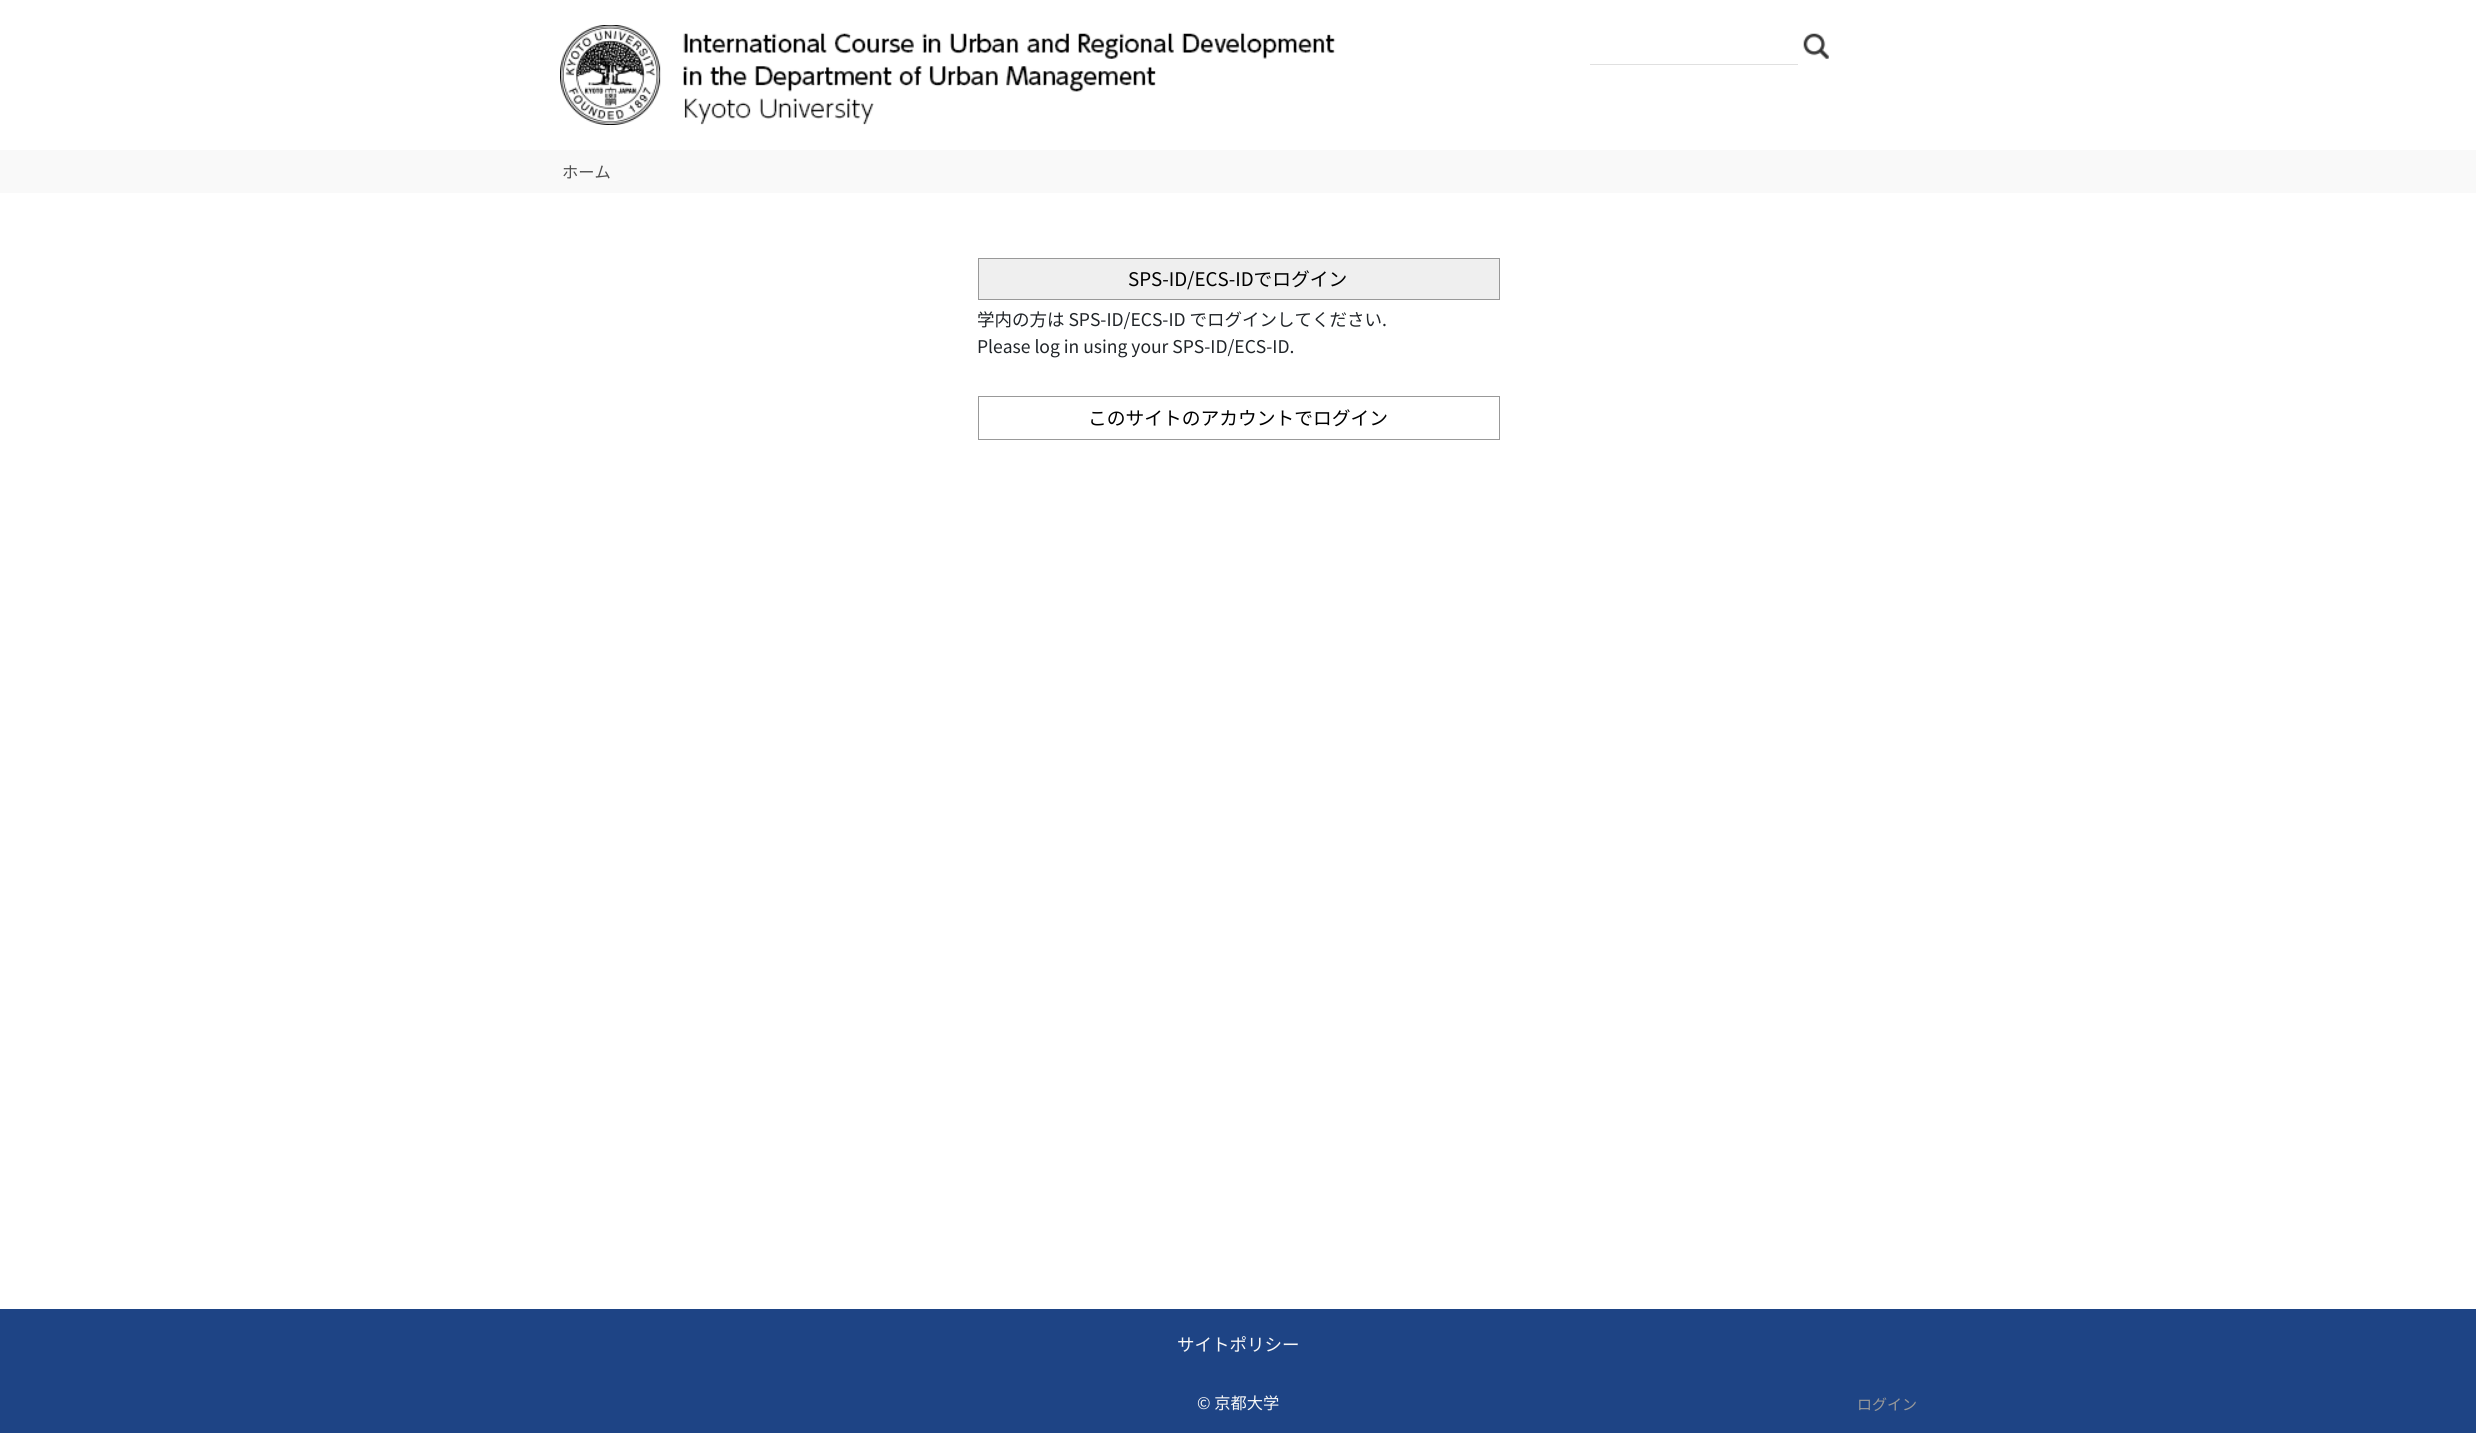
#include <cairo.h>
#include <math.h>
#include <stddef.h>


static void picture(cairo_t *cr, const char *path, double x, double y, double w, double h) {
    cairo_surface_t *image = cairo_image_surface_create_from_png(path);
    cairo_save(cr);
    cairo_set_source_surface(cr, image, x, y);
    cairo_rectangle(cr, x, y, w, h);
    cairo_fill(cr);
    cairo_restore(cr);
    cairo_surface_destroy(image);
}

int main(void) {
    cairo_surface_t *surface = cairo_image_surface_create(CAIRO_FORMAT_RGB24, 2476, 1433);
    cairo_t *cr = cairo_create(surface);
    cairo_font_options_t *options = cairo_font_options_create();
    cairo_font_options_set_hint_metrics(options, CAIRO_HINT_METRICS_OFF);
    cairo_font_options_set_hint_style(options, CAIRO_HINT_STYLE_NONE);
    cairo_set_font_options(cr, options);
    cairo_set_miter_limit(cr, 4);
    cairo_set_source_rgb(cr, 1, 1, 1);
    cairo_paint(cr);
    picture(cr, "img1.png", 560, 25, 776, 100);
    picture(cr, "img2.png", 1803, 33, 26, 26);
    cairo_set_source_rgb(cr, 0.878, 0.878, 0.878);
    cairo_rectangle(cr, 1590, 64, 208, 1);
    cairo_fill(cr);
    cairo_set_source_rgb(cr, 0.976, 0.976, 0.976);
    cairo_rectangle(cr, 0, 150, 2476, 43);
    cairo_fill(cr);
    cairo_select_font_face(cr, "Noto Sans JP", CAIRO_FONT_SLANT_NORMAL, CAIRO_FONT_WEIGHT_NORMAL);
    cairo_set_font_size(cr, 16.25);
    cairo_set_source_rgb(cr, 0.314, 0.314, 0.314);
    cairo_move_to(cr, 562, 178);
    cairo_show_text(cr, "ホーム");
    cairo_set_source_rgb(cr, 0.937, 0.937, 0.937);
    cairo_rectangle(cr, 978.5, 258.5, 521, 41);
    cairo_fill_preserve(cr);
    cairo_set_source_rgb(cr, 0.6, 0.6, 0.6);
    cairo_set_line_width(cr, 1);
    cairo_stroke(cr);
    cairo_set_font_size(cr, 18.75);
    cairo_set_source_rgb(cr, 0, 0, 0);
    cairo_move_to(cr, 1128, 286);
    cairo_show_text(cr, "SPS-ID/ECS-IDでログイン");
    cairo_set_font_size(cr, 17.5);
    cairo_set_source_rgb(cr, 0.129, 0.145, 0.161);
    cairo_move_to(cr, 977, 326);
    cairo_show_text(cr, "学内の方は SPS-ID/ECS-ID でログインしてください.");
    cairo_move_to(cr, 977, 353);
    cairo_show_text(cr, "Please log in using your SPS-ID/ECS-ID.");
    cairo_rectangle(cr, 978.5, 396.5, 521, 43);
    cairo_set_source_rgb(cr, 0.6, 0.6, 0.6);
    cairo_stroke(cr);
    cairo_set_font_size(cr, 18.75);
    cairo_set_source_rgb(cr, 0, 0, 0);
    cairo_move_to(cr, 1088, 425);
    cairo_show_text(cr, "このサイトのアカウントでログイン");
    cairo_set_source_rgb(cr, 0.118, 0.267, 0.522);
    cairo_rectangle(cr, 0, 1309, 2476, 124);
    cairo_fill(cr);
    cairo_set_font_size(cr, 17.5);
    cairo_set_source_rgb(cr, 0.965, 0.965, 0.965);
    cairo_move_to(cr, 1177, 1351);
    cairo_show_text(cr, "サイトポリシー");
    cairo_set_font_size(cr, 16.25);
    cairo_move_to(cr, 1197, 1409);
    cairo_show_text(cr, "© 京都大学");
    cairo_set_font_size(cr, 15);
    cairo_set_source_rgb(cr, 0.6, 0.6, 0.6);
    cairo_move_to(cr, 1857, 1410);
    cairo_show_text(cr, "ログイン");
    cairo_surface_write_to_png(surface, "page.png");
    cairo_font_options_destroy(options);
    cairo_destroy(cr);
    cairo_surface_destroy(surface);
    return 0;
}
